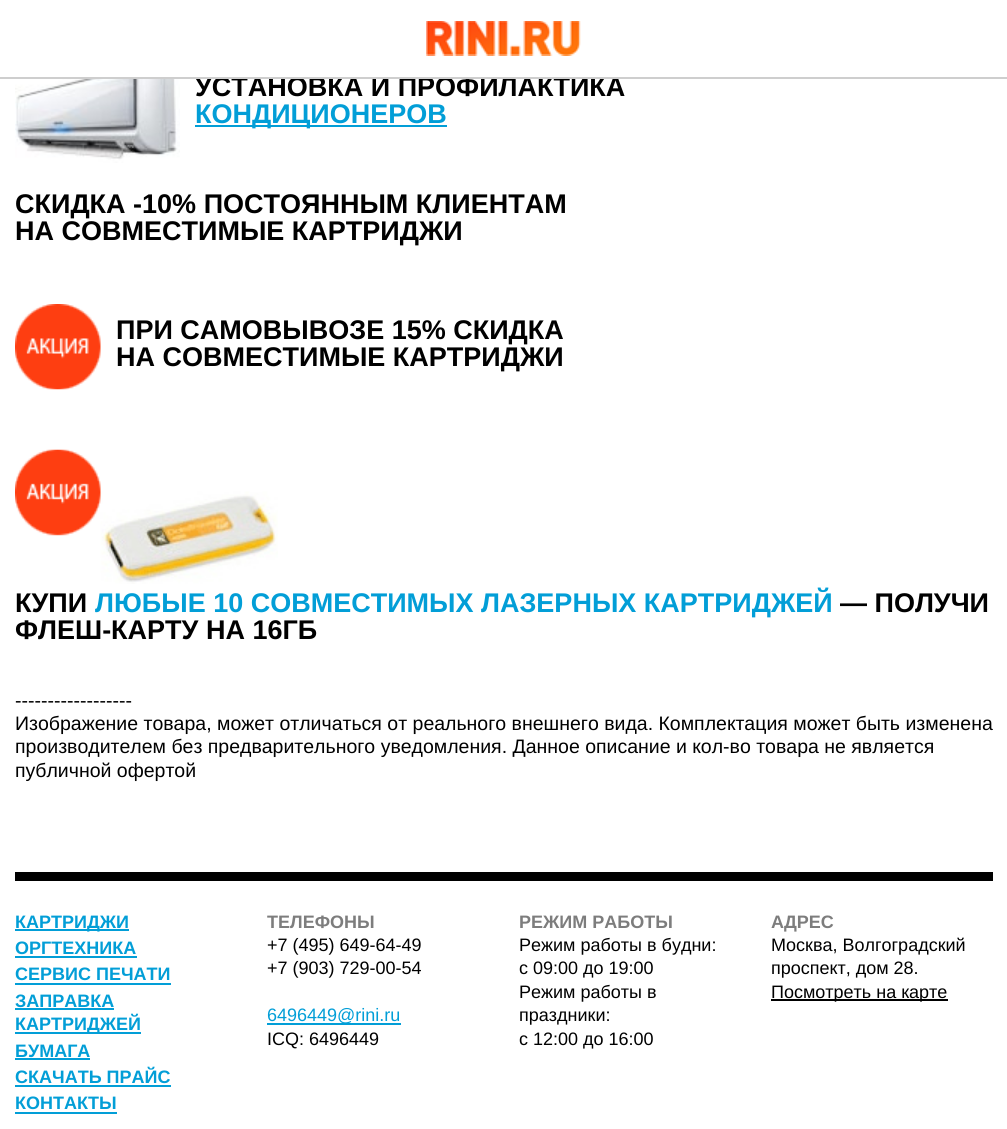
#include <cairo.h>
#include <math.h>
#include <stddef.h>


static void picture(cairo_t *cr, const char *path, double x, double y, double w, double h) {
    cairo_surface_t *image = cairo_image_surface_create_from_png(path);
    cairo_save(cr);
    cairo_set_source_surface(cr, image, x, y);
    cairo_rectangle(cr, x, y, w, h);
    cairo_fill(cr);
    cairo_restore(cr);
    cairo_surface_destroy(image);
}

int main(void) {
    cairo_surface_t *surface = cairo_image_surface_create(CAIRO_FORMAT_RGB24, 1007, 1129);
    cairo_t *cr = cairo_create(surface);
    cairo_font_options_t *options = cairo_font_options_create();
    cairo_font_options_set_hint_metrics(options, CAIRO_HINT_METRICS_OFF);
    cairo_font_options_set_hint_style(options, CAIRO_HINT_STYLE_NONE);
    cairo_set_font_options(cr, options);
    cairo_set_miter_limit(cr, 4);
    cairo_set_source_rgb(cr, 1, 1, 1);
    cairo_paint(cr);
    cairo_select_font_face(cr, "Liberation Sans", CAIRO_FONT_SLANT_NORMAL, CAIRO_FONT_WEIGHT_BOLD);
    cairo_set_font_size(cr, 27);
    cairo_set_source_rgb(cr, 0, 0, 0);
    cairo_move_to(cr, 195, 96);
    cairo_show_text(cr, "УСТАНОВКА И ПРОФИЛАКТИКА");
    cairo_set_source_rgb(cr, 0.808, 0.808, 0.808);
    cairo_rectangle(cr, 0, 77, 1007, 2);
    cairo_fill(cr);
    picture(cr, "img1.png", 426, 21, 155, 35);
    picture(cr, "img2.png", 15, 79, 165, 84);
    cairo_set_source_rgb(cr, 0.008, 0.62, 0.843);
    cairo_rectangle(cr, 195, 125, 252, 2);
    cairo_fill(cr);
    cairo_move_to(cr, 195, 123);
    cairo_show_text(cr, "КОНДИЦИОНЕРОВ");
    cairo_set_source_rgb(cr, 0, 0, 0);
    cairo_move_to(cr, 15, 213);
    cairo_show_text(cr, "СКИДКА -10% ПОСТОЯННЫМ КЛИЕНТАМ");
    cairo_move_to(cr, 15, 240);
    cairo_show_text(cr, "НА СОВМЕСТИМЫЕ КАРТРИДЖИ");
    picture(cr, "img3.png", 15, 304, 86, 86);
    cairo_move_to(cr, 116, 339);
    cairo_show_text(cr, "ПРИ САМОВЫВОЗЕ 15% СКИДКА");
    cairo_move_to(cr, 116, 366);
    cairo_show_text(cr, "НА СОВМЕСТИМЫЕ КАРТРИДЖИ");
    picture(cr, "img4.png", 15, 449, 263, 135);
    cairo_move_to(cr, 15, 612);
    cairo_show_text(cr, "КУПИ");
    cairo_set_source_rgb(cr, 0.008, 0.62, 0.843);
    cairo_move_to(cr, 95, 612);
    cairo_show_text(cr, "ЛЮБЫЕ 10 СОВМЕСТИМЫХ ЛАЗЕРНЫХ КАРТРИДЖЕЙ");
    cairo_set_source_rgb(cr, 0, 0, 0);
    cairo_move_to(cr, 840, 612);
    cairo_show_text(cr, "— ПОЛУЧИ");
    cairo_move_to(cr, 15, 639);
    cairo_show_text(cr, "ФЛЕШ-КАРТУ НА 16ГБ");
    cairo_select_font_face(cr, "Liberation Sans", CAIRO_FONT_SLANT_NORMAL, CAIRO_FONT_WEIGHT_NORMAL);
    cairo_set_font_size(cr, 19.5);
    cairo_move_to(cr, 15, 707);
    cairo_show_text(cr, "------------------");
    cairo_move_to(cr, 15, 730);
    cairo_show_text(cr, "Изображение товара, может отличаться от реального внешнего вида. Комплектация может быть изменена");
    cairo_move_to(cr, 15, 753);
    cairo_show_text(cr, "производителем без предварительного уведомления. Данное описание и кол-во товара не является");
    cairo_move_to(cr, 15, 777);
    cairo_show_text(cr, "публичной офертой");
    cairo_rectangle(cr, 15, 872, 978, 9);
    cairo_fill(cr);
    cairo_set_source_rgb(cr, 0.008, 0.62, 0.843);
    cairo_rectangle(cr, 15, 929, 114, 2);
    cairo_fill(cr);
    cairo_select_font_face(cr, "Liberation Sans", CAIRO_FONT_SLANT_NORMAL, CAIRO_FONT_WEIGHT_BOLD);
    cairo_set_font_size(cr, 18);
    cairo_move_to(cr, 15, 928);
    cairo_show_text(cr, "КАРТРИДЖИ");
    cairo_move_to(cr, 15, 954);
    cairo_show_text(cr, "ОРГТЕХНИКА");
    cairo_rectangle(cr, 15, 956, 122, 2);
    cairo_fill(cr);
    cairo_move_to(cr, 15, 980);
    cairo_show_text(cr, "СЕРВИС ПЕЧАТИ");
    cairo_rectangle(cr, 15, 983, 156, 2);
    cairo_fill(cr);
    cairo_move_to(cr, 15, 1007);
    cairo_show_text(cr, "ЗАПРАВКА");
    cairo_rectangle(cr, 15, 1008, 99, 2);
    cairo_fill(cr);
    cairo_rectangle(cr, 15, 1032, 126, 2);
    cairo_fill(cr);
    cairo_move_to(cr, 15, 1030);
    cairo_show_text(cr, "КАРТРИДЖЕЙ");
    cairo_move_to(cr, 15, 1057);
    cairo_show_text(cr, "БУМАГА");
    cairo_rectangle(cr, 15, 1058, 75, 2);
    cairo_fill(cr);
    cairo_move_to(cr, 15, 1083);
    cairo_show_text(cr, "СКАЧАТЬ ПРАЙС");
    cairo_rectangle(cr, 15, 1085, 156, 2);
    cairo_fill(cr);
    cairo_move_to(cr, 15, 1109);
    cairo_show_text(cr, "КОНТАКТЫ");
    cairo_rectangle(cr, 15, 1112, 102, 2);
    cairo_fill(cr);
    cairo_set_source_rgb(cr, 0.49, 0.49, 0.49);
    cairo_move_to(cr, 267, 928);
    cairo_show_text(cr, "ТЕЛЕФОНЫ");
    cairo_select_font_face(cr, "Liberation Sans", CAIRO_FONT_SLANT_NORMAL, CAIRO_FONT_WEIGHT_NORMAL);
    cairo_set_source_rgb(cr, 0, 0, 0);
    cairo_move_to(cr, 267, 951);
    cairo_show_text(cr, "+7 (495) 649-64-49");
    cairo_move_to(cr, 267, 974);
    cairo_show_text(cr, "+7 (903) 729-00-54");
    cairo_set_source_rgb(cr, 0.008, 0.62, 0.843);
    cairo_rectangle(cr, 267, 1023, 134, 2);
    cairo_fill(cr);
    cairo_move_to(cr, 267, 1021);
    cairo_show_text(cr, "6496449@rini.ru");
    cairo_set_source_rgb(cr, 0, 0, 0);
    cairo_move_to(cr, 267, 1045);
    cairo_show_text(cr, "ICQ: 6496449");
    cairo_select_font_face(cr, "Liberation Sans", CAIRO_FONT_SLANT_NORMAL, CAIRO_FONT_WEIGHT_BOLD);
    cairo_set_source_rgb(cr, 0.49, 0.49, 0.49);
    cairo_move_to(cr, 519, 928);
    cairo_show_text(cr, "РЕЖИМ РАБОТЫ");
    cairo_select_font_face(cr, "Liberation Sans", CAIRO_FONT_SLANT_NORMAL, CAIRO_FONT_WEIGHT_NORMAL);
    cairo_set_source_rgb(cr, 0, 0, 0);
    cairo_move_to(cr, 519, 951);
    cairo_show_text(cr, "Режим работы в будни:");
    cairo_move_to(cr, 519, 974);
    cairo_show_text(cr, "с 09:00 до 19:00");
    cairo_move_to(cr, 519, 998);
    cairo_show_text(cr, "Режим работы в");
    cairo_move_to(cr, 519, 1021);
    cairo_show_text(cr, "праздники:");
    cairo_move_to(cr, 519, 1045);
    cairo_show_text(cr, "с 12:00 до 16:00");
    cairo_select_font_face(cr, "Liberation Sans", CAIRO_FONT_SLANT_NORMAL, CAIRO_FONT_WEIGHT_BOLD);
    cairo_set_source_rgb(cr, 0.49, 0.49, 0.49);
    cairo_move_to(cr, 771, 928);
    cairo_show_text(cr, "АДРЕС");
    cairo_select_font_face(cr, "Liberation Sans", CAIRO_FONT_SLANT_NORMAL, CAIRO_FONT_WEIGHT_NORMAL);
    cairo_set_source_rgb(cr, 0, 0, 0);
    cairo_move_to(cr, 771, 951);
    cairo_show_text(cr, "Москва, Волгоградский");
    cairo_move_to(cr, 771, 974);
    cairo_show_text(cr, "проспект, дом 28.");
    cairo_rectangle(cr, 771, 999, 177, 2);
    cairo_fill(cr);
    cairo_move_to(cr, 771, 998);
    cairo_show_text(cr, "Посмотреть на карте");
    cairo_surface_write_to_png(surface, "page.png");
    cairo_font_options_destroy(options);
    cairo_destroy(cr);
    cairo_surface_destroy(surface);
    return 0;
}
